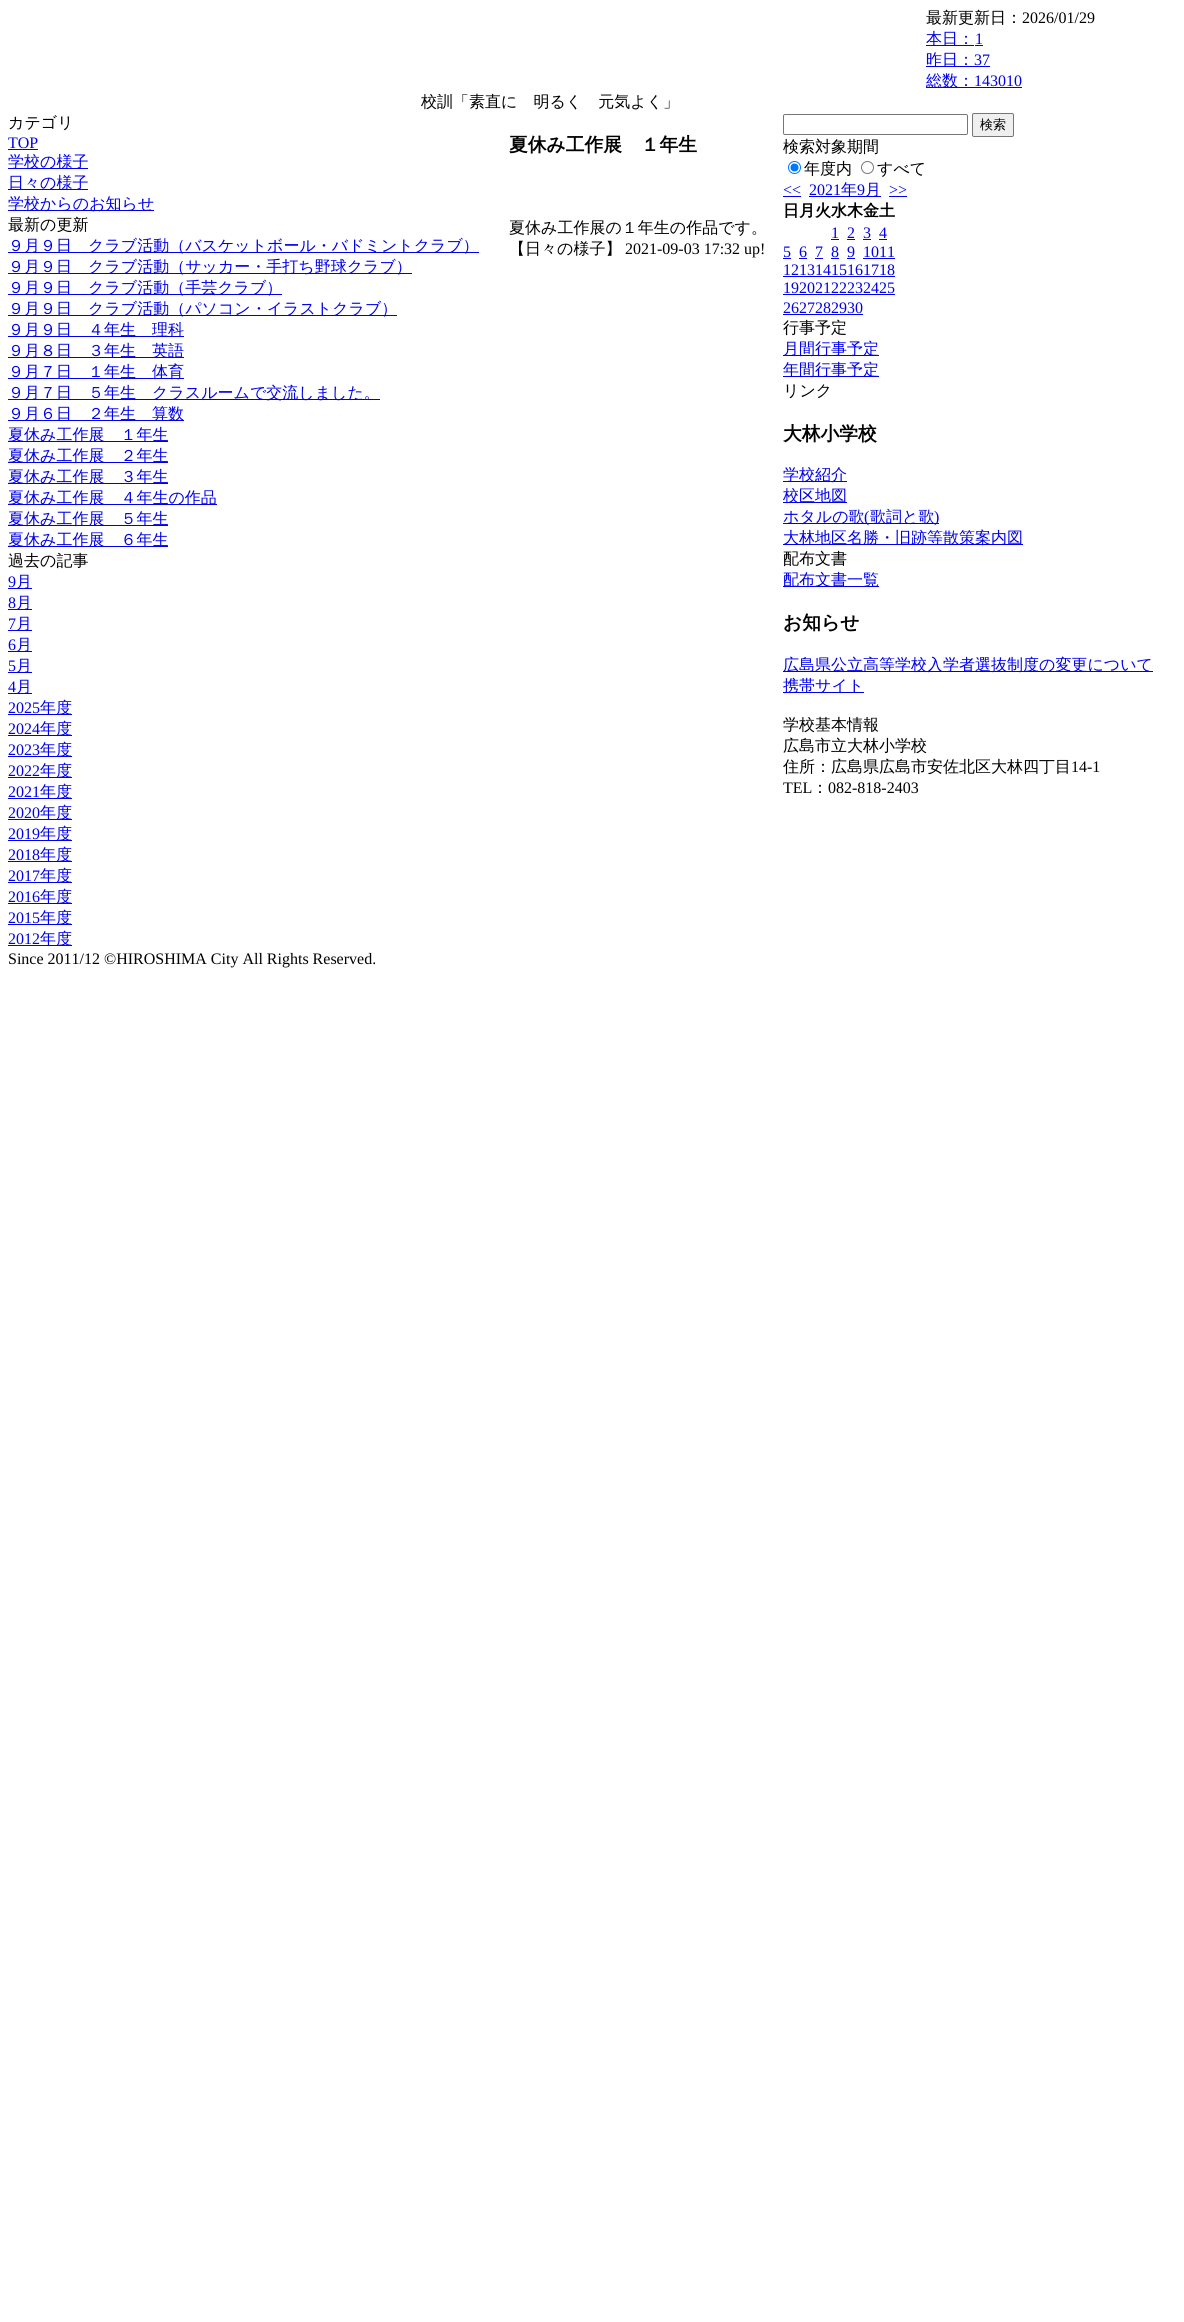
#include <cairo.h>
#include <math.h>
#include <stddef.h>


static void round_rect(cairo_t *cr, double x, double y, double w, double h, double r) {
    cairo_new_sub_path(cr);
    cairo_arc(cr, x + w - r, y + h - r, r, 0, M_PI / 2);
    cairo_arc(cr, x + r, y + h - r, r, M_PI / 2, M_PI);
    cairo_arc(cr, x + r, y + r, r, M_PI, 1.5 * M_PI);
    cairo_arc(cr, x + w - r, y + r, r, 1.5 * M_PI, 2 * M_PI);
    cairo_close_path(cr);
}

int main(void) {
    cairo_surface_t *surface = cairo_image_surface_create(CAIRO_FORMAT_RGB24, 1184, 2322);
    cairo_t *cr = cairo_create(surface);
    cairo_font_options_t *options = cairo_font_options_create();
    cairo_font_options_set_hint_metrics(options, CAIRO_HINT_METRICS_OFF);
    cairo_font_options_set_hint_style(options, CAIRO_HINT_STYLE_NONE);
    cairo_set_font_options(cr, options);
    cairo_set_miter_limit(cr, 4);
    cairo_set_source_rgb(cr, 1, 1, 1);
    cairo_paint(cr);
    cairo_select_font_face(cr, "WenQuanYi Zen Hei Medium", CAIRO_FONT_SLANT_NORMAL, CAIRO_FONT_WEIGHT_NORMAL);
    cairo_set_font_size(cr, 16);
    cairo_set_source_rgb(cr, 0, 0, 0);
    cairo_move_to(cr, 926, 23);
    cairo_show_text(cr, "最新更新日：");
    cairo_select_font_face(cr, "Liberation Serif", CAIRO_FONT_SLANT_NORMAL, CAIRO_FONT_WEIGHT_NORMAL);
    cairo_move_to(cr, 1022, 23);
    cairo_show_text(cr, "2026/01/29");
    cairo_set_source_rgb(cr, 0, 0, 0.933);
    cairo_rectangle(cr, 926, 45, 48, 1);
    cairo_fill(cr);
    cairo_select_font_face(cr, "WenQuanYi Zen Hei Medium", CAIRO_FONT_SLANT_NORMAL, CAIRO_FONT_WEIGHT_NORMAL);
    cairo_move_to(cr, 926, 44);
    cairo_show_text(cr, "本日：");
    cairo_select_font_face(cr, "Liberation Serif", CAIRO_FONT_SLANT_NORMAL, CAIRO_FONT_WEIGHT_NORMAL);
    cairo_move_to(cr, 975, 44);
    cairo_show_text(cr, "1");
    cairo_rectangle(cr, 975, 45, 8, 1);
    cairo_fill(cr);
    cairo_rectangle(cr, 926, 66, 64, 1);
    cairo_fill(cr);
    cairo_select_font_face(cr, "WenQuanYi Zen Hei Medium", CAIRO_FONT_SLANT_NORMAL, CAIRO_FONT_WEIGHT_NORMAL);
    cairo_move_to(cr, 926, 65);
    cairo_show_text(cr, "昨日：");
    cairo_select_font_face(cr, "Liberation Serif", CAIRO_FONT_SLANT_NORMAL, CAIRO_FONT_WEIGHT_NORMAL);
    cairo_move_to(cr, 974, 65);
    cairo_show_text(cr, "37");
    cairo_rectangle(cr, 926, 87, 96, 1);
    cairo_fill(cr);
    cairo_select_font_face(cr, "WenQuanYi Zen Hei Medium", CAIRO_FONT_SLANT_NORMAL, CAIRO_FONT_WEIGHT_NORMAL);
    cairo_move_to(cr, 926, 86);
    cairo_show_text(cr, "総数：");
    cairo_select_font_face(cr, "Liberation Serif", CAIRO_FONT_SLANT_NORMAL, CAIRO_FONT_WEIGHT_NORMAL);
    cairo_move_to(cr, 974, 86);
    cairo_show_text(cr, "143010");
    cairo_select_font_face(cr, "WenQuanYi Zen Hei Medium", CAIRO_FONT_SLANT_NORMAL, CAIRO_FONT_WEIGHT_NORMAL);
    cairo_set_source_rgb(cr, 0, 0, 0);
    cairo_move_to(cr, 421, 107);
    cairo_show_text(cr, "校訓「素直に　明るく　元気よく」");
    cairo_move_to(cr, 8, 128);
    cairo_show_text(cr, "カテゴリ");
    cairo_select_font_face(cr, "Liberation Serif", CAIRO_FONT_SLANT_NORMAL, CAIRO_FONT_WEIGHT_NORMAL);
    cairo_set_source_rgb(cr, 0, 0, 0.933);
    cairo_move_to(cr, 8, 148);
    cairo_show_text(cr, "TOP");
    cairo_rectangle(cr, 8, 149, 30, 1);
    cairo_fill(cr);
    cairo_rectangle(cr, 8, 168, 80, 1);
    cairo_fill(cr);
    cairo_select_font_face(cr, "WenQuanYi Zen Hei Medium", CAIRO_FONT_SLANT_NORMAL, CAIRO_FONT_WEIGHT_NORMAL);
    cairo_move_to(cr, 8, 167);
    cairo_show_text(cr, "学校の様子");
    cairo_rectangle(cr, 8, 189, 80, 1);
    cairo_fill(cr);
    cairo_move_to(cr, 8, 188);
    cairo_show_text(cr, "日々の様子");
    cairo_rectangle(cr, 8, 210, 146, 1);
    cairo_fill(cr);
    cairo_move_to(cr, 8, 209);
    cairo_show_text(cr, "学校からのお知らせ");
    cairo_set_source_rgb(cr, 0, 0, 0);
    cairo_move_to(cr, 8, 230);
    cairo_show_text(cr, "最新の更新");
    cairo_set_source_rgb(cr, 0, 0, 0.933);
    cairo_rectangle(cr, 8, 252, 471, 1);
    cairo_fill(cr);
    cairo_move_to(cr, 8, 251);
    cairo_show_text(cr, "９月９日　クラブ活動（バスケットボール・バドミントクラブ）");
    cairo_rectangle(cr, 8, 273, 404, 1);
    cairo_fill(cr);
    cairo_move_to(cr, 8, 272);
    cairo_show_text(cr, "９月９日　クラブ活動（サッカー・手打ち野球クラブ）");
    cairo_rectangle(cr, 8, 294, 274, 1);
    cairo_fill(cr);
    cairo_move_to(cr, 8, 293);
    cairo_show_text(cr, "９月９日　クラブ活動（手芸クラブ）");
    cairo_rectangle(cr, 8, 315, 389, 1);
    cairo_fill(cr);
    cairo_move_to(cr, 8, 314);
    cairo_show_text(cr, "９月９日　クラブ活動（パソコン・イラストクラブ）");
    cairo_rectangle(cr, 8, 336, 176, 1);
    cairo_fill(cr);
    cairo_move_to(cr, 8, 335);
    cairo_show_text(cr, "９月９日　４年生　理科");
    cairo_rectangle(cr, 8, 357, 176, 1);
    cairo_fill(cr);
    cairo_move_to(cr, 8, 356);
    cairo_show_text(cr, "９月８日　３年生　英語");
    cairo_rectangle(cr, 8, 378, 176, 1);
    cairo_fill(cr);
    cairo_move_to(cr, 8, 377);
    cairo_show_text(cr, "９月７日　１年生　体育");
    cairo_rectangle(cr, 8, 399, 372, 1);
    cairo_fill(cr);
    cairo_move_to(cr, 8, 398);
    cairo_show_text(cr, "９月７日　５年生　クラスルームで交流しました。");
    cairo_rectangle(cr, 8, 420, 176, 1);
    cairo_fill(cr);
    cairo_move_to(cr, 8, 419);
    cairo_show_text(cr, "９月６日　２年生　算数");
    cairo_rectangle(cr, 8, 441, 160, 1);
    cairo_fill(cr);
    cairo_move_to(cr, 8, 440);
    cairo_show_text(cr, "夏休み工作展　１年生");
    cairo_rectangle(cr, 8, 462, 160, 1);
    cairo_fill(cr);
    cairo_move_to(cr, 8, 461);
    cairo_show_text(cr, "夏休み工作展　２年生");
    cairo_rectangle(cr, 8, 483, 160, 1);
    cairo_fill(cr);
    cairo_move_to(cr, 8, 482);
    cairo_show_text(cr, "夏休み工作展　３年生");
    cairo_rectangle(cr, 8, 504, 209, 1);
    cairo_fill(cr);
    cairo_move_to(cr, 8, 503);
    cairo_show_text(cr, "夏休み工作展　４年生の作品");
    cairo_rectangle(cr, 8, 525, 160, 1);
    cairo_fill(cr);
    cairo_move_to(cr, 8, 524);
    cairo_show_text(cr, "夏休み工作展　５年生");
    cairo_rectangle(cr, 8, 546, 160, 1);
    cairo_fill(cr);
    cairo_move_to(cr, 8, 545);
    cairo_show_text(cr, "夏休み工作展　６年生");
    cairo_set_source_rgb(cr, 0, 0, 0);
    cairo_move_to(cr, 8, 566);
    cairo_show_text(cr, "過去の記事");
    cairo_select_font_face(cr, "Liberation Serif", CAIRO_FONT_SLANT_NORMAL, CAIRO_FONT_WEIGHT_NORMAL);
    cairo_set_source_rgb(cr, 0, 0, 0.933);
    cairo_move_to(cr, 8, 587);
    cairo_show_text(cr, "9");
    cairo_rectangle(cr, 8, 588, 24, 1);
    cairo_fill(cr);
    cairo_select_font_face(cr, "WenQuanYi Zen Hei Medium", CAIRO_FONT_SLANT_NORMAL, CAIRO_FONT_WEIGHT_NORMAL);
    cairo_move_to(cr, 16, 587);
    cairo_show_text(cr, "月");
    cairo_select_font_face(cr, "Liberation Serif", CAIRO_FONT_SLANT_NORMAL, CAIRO_FONT_WEIGHT_NORMAL);
    cairo_move_to(cr, 8, 608);
    cairo_show_text(cr, "8");
    cairo_rectangle(cr, 8, 609, 24, 1);
    cairo_fill(cr);
    cairo_select_font_face(cr, "WenQuanYi Zen Hei Medium", CAIRO_FONT_SLANT_NORMAL, CAIRO_FONT_WEIGHT_NORMAL);
    cairo_move_to(cr, 16, 608);
    cairo_show_text(cr, "月");
    cairo_select_font_face(cr, "Liberation Serif", CAIRO_FONT_SLANT_NORMAL, CAIRO_FONT_WEIGHT_NORMAL);
    cairo_move_to(cr, 8, 629);
    cairo_show_text(cr, "7");
    cairo_rectangle(cr, 8, 630, 24, 1);
    cairo_fill(cr);
    cairo_select_font_face(cr, "WenQuanYi Zen Hei Medium", CAIRO_FONT_SLANT_NORMAL, CAIRO_FONT_WEIGHT_NORMAL);
    cairo_move_to(cr, 16, 629);
    cairo_show_text(cr, "月");
    cairo_select_font_face(cr, "Liberation Serif", CAIRO_FONT_SLANT_NORMAL, CAIRO_FONT_WEIGHT_NORMAL);
    cairo_move_to(cr, 8, 650);
    cairo_show_text(cr, "6");
    cairo_rectangle(cr, 8, 651, 24, 1);
    cairo_fill(cr);
    cairo_select_font_face(cr, "WenQuanYi Zen Hei Medium", CAIRO_FONT_SLANT_NORMAL, CAIRO_FONT_WEIGHT_NORMAL);
    cairo_move_to(cr, 16, 650);
    cairo_show_text(cr, "月");
    cairo_select_font_face(cr, "Liberation Serif", CAIRO_FONT_SLANT_NORMAL, CAIRO_FONT_WEIGHT_NORMAL);
    cairo_move_to(cr, 8, 671);
    cairo_show_text(cr, "5");
    cairo_rectangle(cr, 8, 672, 24, 1);
    cairo_fill(cr);
    cairo_select_font_face(cr, "WenQuanYi Zen Hei Medium", CAIRO_FONT_SLANT_NORMAL, CAIRO_FONT_WEIGHT_NORMAL);
    cairo_move_to(cr, 16, 671);
    cairo_show_text(cr, "月");
    cairo_select_font_face(cr, "Liberation Serif", CAIRO_FONT_SLANT_NORMAL, CAIRO_FONT_WEIGHT_NORMAL);
    cairo_move_to(cr, 8, 692);
    cairo_show_text(cr, "4");
    cairo_rectangle(cr, 8, 693, 24, 1);
    cairo_fill(cr);
    cairo_select_font_face(cr, "WenQuanYi Zen Hei Medium", CAIRO_FONT_SLANT_NORMAL, CAIRO_FONT_WEIGHT_NORMAL);
    cairo_move_to(cr, 16, 692);
    cairo_show_text(cr, "月");
    cairo_select_font_face(cr, "Liberation Serif", CAIRO_FONT_SLANT_NORMAL, CAIRO_FONT_WEIGHT_NORMAL);
    cairo_move_to(cr, 8, 713);
    cairo_show_text(cr, "2025");
    cairo_rectangle(cr, 8, 714, 64, 1);
    cairo_fill(cr);
    cairo_select_font_face(cr, "WenQuanYi Zen Hei Medium", CAIRO_FONT_SLANT_NORMAL, CAIRO_FONT_WEIGHT_NORMAL);
    cairo_move_to(cr, 40, 713);
    cairo_show_text(cr, "年度");
    cairo_select_font_face(cr, "Liberation Serif", CAIRO_FONT_SLANT_NORMAL, CAIRO_FONT_WEIGHT_NORMAL);
    cairo_move_to(cr, 8, 734);
    cairo_show_text(cr, "2024");
    cairo_rectangle(cr, 8, 735, 64, 1);
    cairo_fill(cr);
    cairo_select_font_face(cr, "WenQuanYi Zen Hei Medium", CAIRO_FONT_SLANT_NORMAL, CAIRO_FONT_WEIGHT_NORMAL);
    cairo_move_to(cr, 40, 734);
    cairo_show_text(cr, "年度");
    cairo_select_font_face(cr, "Liberation Serif", CAIRO_FONT_SLANT_NORMAL, CAIRO_FONT_WEIGHT_NORMAL);
    cairo_move_to(cr, 8, 755);
    cairo_show_text(cr, "2023");
    cairo_rectangle(cr, 8, 756, 64, 1);
    cairo_fill(cr);
    cairo_select_font_face(cr, "WenQuanYi Zen Hei Medium", CAIRO_FONT_SLANT_NORMAL, CAIRO_FONT_WEIGHT_NORMAL);
    cairo_move_to(cr, 40, 755);
    cairo_show_text(cr, "年度");
    cairo_select_font_face(cr, "Liberation Serif", CAIRO_FONT_SLANT_NORMAL, CAIRO_FONT_WEIGHT_NORMAL);
    cairo_move_to(cr, 8, 776);
    cairo_show_text(cr, "2022");
    cairo_rectangle(cr, 8, 777, 64, 1);
    cairo_fill(cr);
    cairo_select_font_face(cr, "WenQuanYi Zen Hei Medium", CAIRO_FONT_SLANT_NORMAL, CAIRO_FONT_WEIGHT_NORMAL);
    cairo_move_to(cr, 40, 776);
    cairo_show_text(cr, "年度");
    cairo_select_font_face(cr, "Liberation Serif", CAIRO_FONT_SLANT_NORMAL, CAIRO_FONT_WEIGHT_NORMAL);
    cairo_move_to(cr, 8, 797);
    cairo_show_text(cr, "2021");
    cairo_rectangle(cr, 8, 798, 64, 1);
    cairo_fill(cr);
    cairo_select_font_face(cr, "WenQuanYi Zen Hei Medium", CAIRO_FONT_SLANT_NORMAL, CAIRO_FONT_WEIGHT_NORMAL);
    cairo_move_to(cr, 40, 797);
    cairo_show_text(cr, "年度");
    cairo_select_font_face(cr, "Liberation Serif", CAIRO_FONT_SLANT_NORMAL, CAIRO_FONT_WEIGHT_NORMAL);
    cairo_move_to(cr, 8, 818);
    cairo_show_text(cr, "2020");
    cairo_rectangle(cr, 8, 819, 64, 1);
    cairo_fill(cr);
    cairo_select_font_face(cr, "WenQuanYi Zen Hei Medium", CAIRO_FONT_SLANT_NORMAL, CAIRO_FONT_WEIGHT_NORMAL);
    cairo_move_to(cr, 40, 818);
    cairo_show_text(cr, "年度");
    cairo_select_font_face(cr, "Liberation Serif", CAIRO_FONT_SLANT_NORMAL, CAIRO_FONT_WEIGHT_NORMAL);
    cairo_move_to(cr, 8, 839);
    cairo_show_text(cr, "2019");
    cairo_rectangle(cr, 8, 840, 64, 1);
    cairo_fill(cr);
    cairo_select_font_face(cr, "WenQuanYi Zen Hei Medium", CAIRO_FONT_SLANT_NORMAL, CAIRO_FONT_WEIGHT_NORMAL);
    cairo_move_to(cr, 40, 839);
    cairo_show_text(cr, "年度");
    cairo_select_font_face(cr, "Liberation Serif", CAIRO_FONT_SLANT_NORMAL, CAIRO_FONT_WEIGHT_NORMAL);
    cairo_move_to(cr, 8, 860);
    cairo_show_text(cr, "2018");
    cairo_rectangle(cr, 8, 861, 64, 1);
    cairo_fill(cr);
    cairo_select_font_face(cr, "WenQuanYi Zen Hei Medium", CAIRO_FONT_SLANT_NORMAL, CAIRO_FONT_WEIGHT_NORMAL);
    cairo_move_to(cr, 40, 860);
    cairo_show_text(cr, "年度");
    cairo_select_font_face(cr, "Liberation Serif", CAIRO_FONT_SLANT_NORMAL, CAIRO_FONT_WEIGHT_NORMAL);
    cairo_move_to(cr, 8, 881);
    cairo_show_text(cr, "2017");
    cairo_rectangle(cr, 8, 882, 64, 1);
    cairo_fill(cr);
    cairo_select_font_face(cr, "WenQuanYi Zen Hei Medium", CAIRO_FONT_SLANT_NORMAL, CAIRO_FONT_WEIGHT_NORMAL);
    cairo_move_to(cr, 40, 881);
    cairo_show_text(cr, "年度");
    cairo_select_font_face(cr, "Liberation Serif", CAIRO_FONT_SLANT_NORMAL, CAIRO_FONT_WEIGHT_NORMAL);
    cairo_move_to(cr, 8, 902);
    cairo_show_text(cr, "2016");
    cairo_rectangle(cr, 8, 903, 64, 1);
    cairo_fill(cr);
    cairo_select_font_face(cr, "WenQuanYi Zen Hei Medium", CAIRO_FONT_SLANT_NORMAL, CAIRO_FONT_WEIGHT_NORMAL);
    cairo_move_to(cr, 40, 902);
    cairo_show_text(cr, "年度");
    cairo_select_font_face(cr, "Liberation Serif", CAIRO_FONT_SLANT_NORMAL, CAIRO_FONT_WEIGHT_NORMAL);
    cairo_move_to(cr, 8, 923);
    cairo_show_text(cr, "2015");
    cairo_rectangle(cr, 8, 924, 64, 1);
    cairo_fill(cr);
    cairo_select_font_face(cr, "WenQuanYi Zen Hei Medium", CAIRO_FONT_SLANT_NORMAL, CAIRO_FONT_WEIGHT_NORMAL);
    cairo_move_to(cr, 40, 923);
    cairo_show_text(cr, "年度");
    cairo_select_font_face(cr, "Liberation Serif", CAIRO_FONT_SLANT_NORMAL, CAIRO_FONT_WEIGHT_NORMAL);
    cairo_move_to(cr, 8, 944);
    cairo_show_text(cr, "2012");
    cairo_rectangle(cr, 8, 945, 64, 1);
    cairo_fill(cr);
    cairo_select_font_face(cr, "WenQuanYi Zen Hei Medium", CAIRO_FONT_SLANT_NORMAL, CAIRO_FONT_WEIGHT_NORMAL);
    cairo_move_to(cr, 40, 944);
    cairo_show_text(cr, "年度");
    cairo_select_font_face(cr, "WenQuanYi Zen Hei", CAIRO_FONT_SLANT_NORMAL, CAIRO_FONT_WEIGHT_BOLD);
    cairo_set_font_size(cr, 18.75);
    cairo_set_source_rgb(cr, 0, 0, 0);
    cairo_move_to(cr, 509, 151);
    cairo_show_text(cr, "夏休み工作展　１年生");
    cairo_select_font_face(cr, "WenQuanYi Zen Hei Medium", CAIRO_FONT_SLANT_NORMAL, CAIRO_FONT_WEIGHT_NORMAL);
    cairo_set_font_size(cr, 16);
    cairo_move_to(cr, 509, 233);
    cairo_show_text(cr, "夏休み工作展の１年生の作品です。");
    cairo_move_to(cr, 509, 254);
    cairo_show_text(cr, "【日々の様子】");
    cairo_select_font_face(cr, "Liberation Serif", CAIRO_FONT_SLANT_NORMAL, CAIRO_FONT_WEIGHT_NORMAL);
    cairo_move_to(cr, 625, 254);
    cairo_show_text(cr, "2021-09-03 17:32 up!");
    round_rect(cr, 783.5, 114.5, 184, 20, 1.5);
    cairo_set_source_rgb(cr, 0.463, 0.463, 0.463);
    cairo_set_line_width(cr, 1);
    cairo_stroke(cr);
    cairo_set_source_rgb(cr, 0.937, 0.937, 0.937);
    round_rect(cr, 972.5, 113.5, 41, 23, 1.5);
    cairo_fill_preserve(cr);
    cairo_set_source_rgb(cr, 0.463, 0.463, 0.463);
    cairo_stroke(cr);
    cairo_select_font_face(cr, "WenQuanYi Zen Hei Medium", CAIRO_FONT_SLANT_NORMAL, CAIRO_FONT_WEIGHT_NORMAL);
    cairo_set_font_size(cr, 13);
    cairo_set_source_rgb(cr, 0, 0, 0);
    cairo_move_to(cr, 980, 129);
    cairo_show_text(cr, "検索");
    cairo_set_font_size(cr, 16);
    cairo_move_to(cr, 783, 152);
    cairo_show_text(cr, "検索対象期間");
    cairo_new_path(cr);
    cairo_arc(cr, 794.5, 167.5, 6, 0, 2 * M_PI);
    cairo_set_source_rgb(cr, 0, 0.459, 1);
    cairo_stroke(cr);
    cairo_arc(cr, 794.5, 167.5, 4, 0, 2 * M_PI);
    cairo_fill(cr);
    cairo_set_source_rgb(cr, 0, 0, 0);
    cairo_move_to(cr, 804, 174);
    cairo_show_text(cr, "年度内");
    cairo_new_path(cr);
    cairo_arc(cr, 867.5, 167.5, 6, 0, 2 * M_PI);
    cairo_set_source_rgb(cr, 0.463, 0.463, 0.463);
    cairo_stroke(cr);
    cairo_set_source_rgb(cr, 0, 0, 0);
    cairo_move_to(cr, 877, 174);
    cairo_show_text(cr, "すべて");
    cairo_select_font_face(cr, "Liberation Serif", CAIRO_FONT_SLANT_NORMAL, CAIRO_FONT_WEIGHT_NORMAL);
    cairo_set_source_rgb(cr, 0, 0, 0.933);
    cairo_move_to(cr, 783, 195);
    cairo_show_text(cr, "<<");
    cairo_rectangle(cr, 783, 196, 18, 1);
    cairo_fill(cr);
    cairo_move_to(cr, 809, 195);
    cairo_show_text(cr, "2021");
    cairo_rectangle(cr, 809, 196, 72, 1);
    cairo_fill(cr);
    cairo_select_font_face(cr, "WenQuanYi Zen Hei Medium", CAIRO_FONT_SLANT_NORMAL, CAIRO_FONT_WEIGHT_NORMAL);
    cairo_move_to(cr, 841, 195);
    cairo_show_text(cr, "年");
    cairo_select_font_face(cr, "Liberation Serif", CAIRO_FONT_SLANT_NORMAL, CAIRO_FONT_WEIGHT_NORMAL);
    cairo_move_to(cr, 857, 195);
    cairo_show_text(cr, "9");
    cairo_select_font_face(cr, "WenQuanYi Zen Hei Medium", CAIRO_FONT_SLANT_NORMAL, CAIRO_FONT_WEIGHT_NORMAL);
    cairo_move_to(cr, 865, 195);
    cairo_show_text(cr, "月");
    cairo_select_font_face(cr, "Liberation Serif", CAIRO_FONT_SLANT_NORMAL, CAIRO_FONT_WEIGHT_NORMAL);
    cairo_move_to(cr, 889, 195);
    cairo_show_text(cr, ">>");
    cairo_rectangle(cr, 889, 196, 18, 1);
    cairo_fill(cr);
    cairo_select_font_face(cr, "WenQuanYi Zen Hei", CAIRO_FONT_SLANT_NORMAL, CAIRO_FONT_WEIGHT_BOLD);
    cairo_set_source_rgb(cr, 0, 0, 0);
    cairo_move_to(cr, 783, 216);
    cairo_show_text(cr, "日月火水木金土");
    cairo_select_font_face(cr, "Liberation Serif", CAIRO_FONT_SLANT_NORMAL, CAIRO_FONT_WEIGHT_NORMAL);
    cairo_set_source_rgb(cr, 0, 0, 0.933);
    cairo_move_to(cr, 831, 238);
    cairo_show_text(cr, "1");
    cairo_rectangle(cr, 831, 239, 8, 1);
    cairo_fill(cr);
    cairo_move_to(cr, 847, 238);
    cairo_show_text(cr, "2");
    cairo_rectangle(cr, 847, 239, 8, 1);
    cairo_fill(cr);
    cairo_move_to(cr, 863, 238);
    cairo_show_text(cr, "3");
    cairo_rectangle(cr, 863, 239, 8, 1);
    cairo_fill(cr);
    cairo_move_to(cr, 879, 238);
    cairo_show_text(cr, "4");
    cairo_rectangle(cr, 879, 239, 8, 1);
    cairo_fill(cr);
    cairo_move_to(cr, 783, 257);
    cairo_show_text(cr, "5");
    cairo_rectangle(cr, 783, 258, 8, 1);
    cairo_fill(cr);
    cairo_move_to(cr, 799, 257);
    cairo_show_text(cr, "6");
    cairo_rectangle(cr, 799, 258, 8, 1);
    cairo_fill(cr);
    cairo_move_to(cr, 815, 257);
    cairo_show_text(cr, "7");
    cairo_rectangle(cr, 815, 258, 8, 1);
    cairo_fill(cr);
    cairo_move_to(cr, 831, 257);
    cairo_show_text(cr, "8");
    cairo_rectangle(cr, 831, 258, 8, 1);
    cairo_fill(cr);
    cairo_move_to(cr, 847, 257);
    cairo_show_text(cr, "9");
    cairo_rectangle(cr, 847, 258, 8, 1);
    cairo_fill(cr);
    cairo_move_to(cr, 863, 257);
    cairo_show_text(cr, "1011");
    cairo_rectangle(cr, 863, 258, 32, 1);
    cairo_fill(cr);
    cairo_move_to(cr, 783, 275);
    cairo_show_text(cr, "12131415161718");
    cairo_rectangle(cr, 783, 276, 112, 1);
    cairo_fill(cr);
    cairo_move_to(cr, 783, 293);
    cairo_show_text(cr, "19202122232425");
    cairo_rectangle(cr, 783, 294, 112, 1);
    cairo_fill(cr);
    cairo_move_to(cr, 783, 313);
    cairo_show_text(cr, "2627282930");
    cairo_rectangle(cr, 783, 314, 80, 1);
    cairo_fill(cr);
    cairo_select_font_face(cr, "WenQuanYi Zen Hei Medium", CAIRO_FONT_SLANT_NORMAL, CAIRO_FONT_WEIGHT_NORMAL);
    cairo_set_source_rgb(cr, 0, 0, 0);
    cairo_move_to(cr, 783, 333);
    cairo_show_text(cr, "行事予定");
    cairo_set_source_rgb(cr, 0, 0, 0.933);
    cairo_rectangle(cr, 783, 355, 96, 1);
    cairo_fill(cr);
    cairo_move_to(cr, 783, 354);
    cairo_show_text(cr, "月間行事予定");
    cairo_rectangle(cr, 783, 376, 96, 1);
    cairo_fill(cr);
    cairo_move_to(cr, 783, 375);
    cairo_show_text(cr, "年間行事予定");
    cairo_set_source_rgb(cr, 0, 0, 0);
    cairo_move_to(cr, 783, 396);
    cairo_show_text(cr, "リンク");
    cairo_select_font_face(cr, "WenQuanYi Zen Hei", CAIRO_FONT_SLANT_NORMAL, CAIRO_FONT_WEIGHT_BOLD);
    cairo_set_font_size(cr, 18.75);
    cairo_move_to(cr, 783, 440);
    cairo_show_text(cr, "大林小学校");
    cairo_set_source_rgb(cr, 0, 0, 0.933);
    cairo_rectangle(cr, 783, 481, 64, 1);
    cairo_fill(cr);
    cairo_select_font_face(cr, "WenQuanYi Zen Hei Medium", CAIRO_FONT_SLANT_NORMAL, CAIRO_FONT_WEIGHT_NORMAL);
    cairo_set_font_size(cr, 16);
    cairo_move_to(cr, 783, 480);
    cairo_show_text(cr, "学校紹介");
    cairo_rectangle(cr, 783, 502, 64, 1);
    cairo_fill(cr);
    cairo_move_to(cr, 783, 501);
    cairo_show_text(cr, "校区地図");
    cairo_rectangle(cr, 783, 523, 156, 1);
    cairo_fill(cr);
    cairo_move_to(cr, 783, 522);
    cairo_show_text(cr, "ホタルの歌");
    cairo_select_font_face(cr, "Liberation Serif", CAIRO_FONT_SLANT_NORMAL, CAIRO_FONT_WEIGHT_NORMAL);
    cairo_move_to(cr, 864, 522);
    cairo_show_text(cr, "(");
    cairo_select_font_face(cr, "WenQuanYi Zen Hei Medium", CAIRO_FONT_SLANT_NORMAL, CAIRO_FONT_WEIGHT_NORMAL);
    cairo_move_to(cr, 870, 522);
    cairo_show_text(cr, "歌詞と歌");
    cairo_select_font_face(cr, "Liberation Serif", CAIRO_FONT_SLANT_NORMAL, CAIRO_FONT_WEIGHT_NORMAL);
    cairo_move_to(cr, 934, 522);
    cairo_show_text(cr, ")");
    cairo_rectangle(cr, 783, 544, 240, 1);
    cairo_fill(cr);
    cairo_select_font_face(cr, "WenQuanYi Zen Hei Medium", CAIRO_FONT_SLANT_NORMAL, CAIRO_FONT_WEIGHT_NORMAL);
    cairo_move_to(cr, 783, 543);
    cairo_show_text(cr, "大林地区名勝・旧跡等散策案内図");
    cairo_set_source_rgb(cr, 0, 0, 0);
    cairo_move_to(cr, 783, 564);
    cairo_show_text(cr, "配布文書");
    cairo_set_source_rgb(cr, 0, 0, 0.933);
    cairo_rectangle(cr, 783, 586, 96, 1);
    cairo_fill(cr);
    cairo_move_to(cr, 783, 585);
    cairo_show_text(cr, "配布文書一覧");
    cairo_select_font_face(cr, "WenQuanYi Zen Hei", CAIRO_FONT_SLANT_NORMAL, CAIRO_FONT_WEIGHT_BOLD);
    cairo_set_font_size(cr, 18.75);
    cairo_set_source_rgb(cr, 0, 0, 0);
    cairo_move_to(cr, 783, 629);
    cairo_show_text(cr, "お知らせ");
    cairo_set_source_rgb(cr, 0, 0, 0.933);
    cairo_rectangle(cr, 783, 671, 370, 1);
    cairo_fill(cr);
    cairo_select_font_face(cr, "WenQuanYi Zen Hei Medium", CAIRO_FONT_SLANT_NORMAL, CAIRO_FONT_WEIGHT_NORMAL);
    cairo_set_font_size(cr, 16);
    cairo_move_to(cr, 783, 670);
    cairo_show_text(cr, "広島県公立高等学校入学者選抜制度の変更について");
    cairo_rectangle(cr, 783, 692, 81, 1);
    cairo_fill(cr);
    cairo_move_to(cr, 783, 691);
    cairo_show_text(cr, "携帯サイト");
    cairo_set_source_rgb(cr, 0, 0, 0);
    cairo_move_to(cr, 783, 730);
    cairo_show_text(cr, "学校基本情報");
    cairo_move_to(cr, 783, 751);
    cairo_show_text(cr, "広島市立大林小学校");
    cairo_move_to(cr, 783, 772);
    cairo_show_text(cr, "住所：広島県広島市安佐北区大林四丁目");
    cairo_select_font_face(cr, "Liberation Serif", CAIRO_FONT_SLANT_NORMAL, CAIRO_FONT_WEIGHT_NORMAL);
    cairo_move_to(cr, 1071, 772);
    cairo_show_text(cr, "14-1");
    cairo_move_to(cr, 783, 793);
    cairo_show_text(cr, "TEL");
    cairo_select_font_face(cr, "WenQuanYi Zen Hei Medium", CAIRO_FONT_SLANT_NORMAL, CAIRO_FONT_WEIGHT_NORMAL);
    cairo_move_to(cr, 812, 793);
    cairo_show_text(cr, "：");
    cairo_select_font_face(cr, "Liberation Serif", CAIRO_FONT_SLANT_NORMAL, CAIRO_FONT_WEIGHT_NORMAL);
    cairo_move_to(cr, 828, 793);
    cairo_show_text(cr, "082-818-2403");
    cairo_move_to(cr, 8, 964);
    cairo_show_text(cr, "Since 2011/12 ©HIROSHIMA City All Rights Reserved.");
    cairo_surface_write_to_png(surface, "page.png");
    cairo_font_options_destroy(options);
    cairo_destroy(cr);
    cairo_surface_destroy(surface);
    return 0;
}
